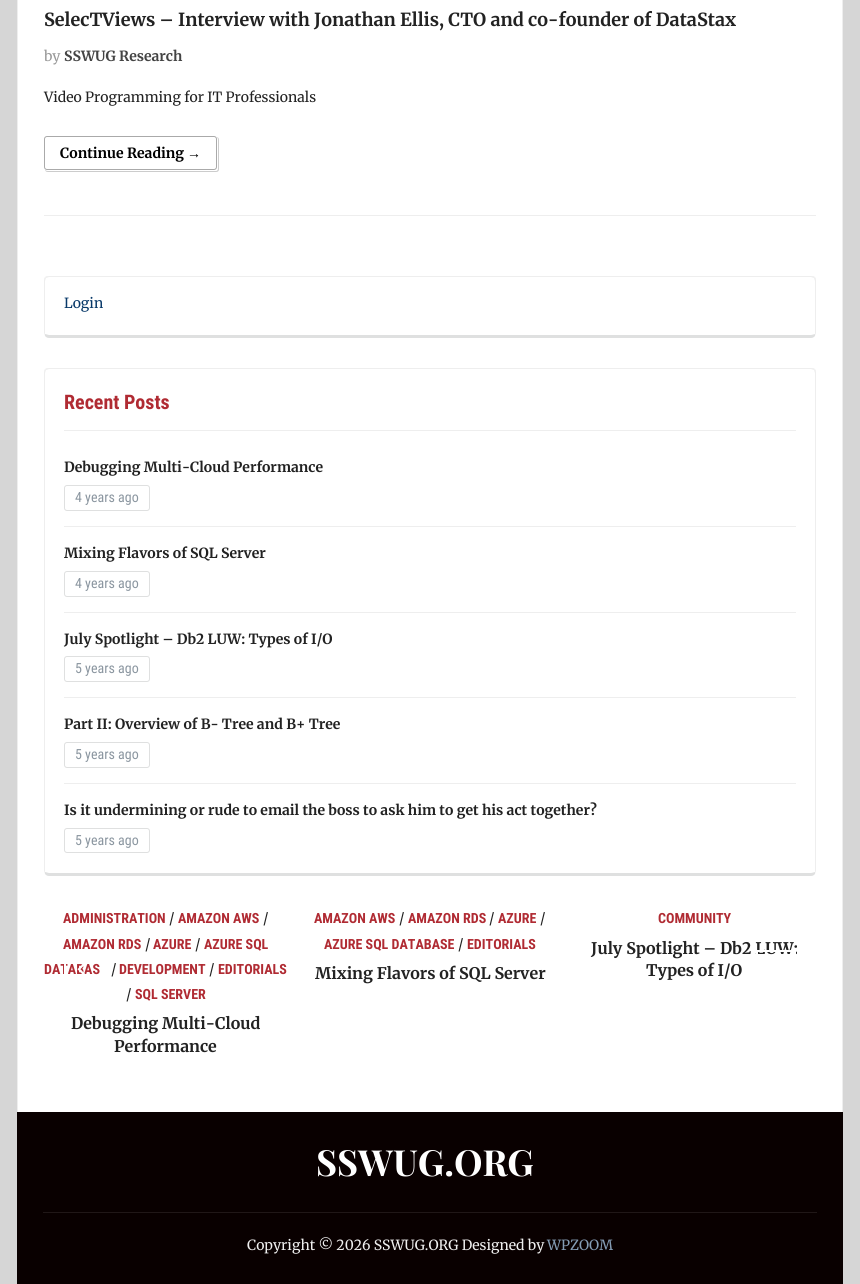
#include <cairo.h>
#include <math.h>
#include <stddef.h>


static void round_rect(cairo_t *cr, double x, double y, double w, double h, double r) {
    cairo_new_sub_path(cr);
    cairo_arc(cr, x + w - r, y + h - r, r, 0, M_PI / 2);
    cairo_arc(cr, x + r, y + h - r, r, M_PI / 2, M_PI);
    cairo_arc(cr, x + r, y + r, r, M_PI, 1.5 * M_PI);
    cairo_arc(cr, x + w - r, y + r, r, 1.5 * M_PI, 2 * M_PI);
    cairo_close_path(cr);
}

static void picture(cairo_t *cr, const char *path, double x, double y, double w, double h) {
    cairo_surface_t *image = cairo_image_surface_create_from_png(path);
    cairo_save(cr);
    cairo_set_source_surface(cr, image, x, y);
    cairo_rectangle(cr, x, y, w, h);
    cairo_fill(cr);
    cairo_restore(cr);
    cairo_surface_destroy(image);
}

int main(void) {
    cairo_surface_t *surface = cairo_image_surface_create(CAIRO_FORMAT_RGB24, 860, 1284);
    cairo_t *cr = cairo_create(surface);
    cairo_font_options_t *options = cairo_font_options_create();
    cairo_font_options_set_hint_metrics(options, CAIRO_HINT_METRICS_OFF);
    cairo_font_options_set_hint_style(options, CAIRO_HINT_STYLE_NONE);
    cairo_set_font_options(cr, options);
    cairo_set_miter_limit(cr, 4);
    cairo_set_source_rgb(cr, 0.839, 0.839, 0.839);
    cairo_paint(cr);
    cairo_set_source_rgb(cr, 1, 1, 1);
    cairo_rectangle(cr, 18, 0, 824, 1112);
    cairo_fill(cr);
    cairo_set_source_rgb(cr, 0.933, 0.933, 0.933);
    cairo_rectangle(cr, 842, 0, 1, 1112);
    cairo_fill(cr);
    cairo_rectangle(cr, 17, 0, 1, 1112);
    cairo_fill(cr);
    cairo_rectangle(cr, 44, 215, 772, 1);
    cairo_fill(cr);
    cairo_select_font_face(cr, "Merriweather", CAIRO_FONT_SLANT_NORMAL, CAIRO_FONT_WEIGHT_BOLD);
    cairo_set_font_size(cr, 18);
    cairo_set_source_rgb(cr, 0.133, 0.133, 0.133);
    cairo_move_to(cr, 44, 26);
    cairo_show_text(cr, "SelecTViews – Interview with Jonathan Ellis, CTO and co-founder of DataStax");
    cairo_select_font_face(cr, "Merriweather", CAIRO_FONT_SLANT_NORMAL, CAIRO_FONT_WEIGHT_NORMAL);
    cairo_set_font_size(cr, 14);
    cairo_set_source_rgb(cr, 0.6, 0.6, 0.6);
    cairo_move_to(cr, 44, 61);
    cairo_show_text(cr, "by");
    cairo_select_font_face(cr, "Merriweather", CAIRO_FONT_SLANT_NORMAL, CAIRO_FONT_WEIGHT_BOLD);
    cairo_set_source_rgb(cr, 0.267, 0.267, 0.267);
    cairo_move_to(cr, 64, 61);
    cairo_show_text(cr, "SSWUG Research");
    cairo_select_font_face(cr, "Merriweather", CAIRO_FONT_SLANT_NORMAL, CAIRO_FONT_WEIGHT_NORMAL);
    cairo_set_source_rgb(cr, 0.133, 0.133, 0.133);
    cairo_move_to(cr, 44, 102);
    cairo_show_text(cr, "Video Programming for IT Professionals");
    round_rect(cr, 44.5, 136.5, 172, 33, 2.5);
    cairo_set_source_rgb(cr, 0.667, 0.667, 0.667);
    cairo_set_line_width(cr, 1);
    cairo_stroke(cr);
    cairo_select_font_face(cr, "Merriweather", CAIRO_FONT_SLANT_NORMAL, CAIRO_FONT_WEIGHT_BOLD);
    cairo_set_source_rgb(cr, 0, 0, 0);
    cairo_move_to(cr, 60, 158);
    cairo_show_text(cr, "Continue Reading");
    cairo_select_font_face(cr, "Liberation Serif", CAIRO_FONT_SLANT_NORMAL, CAIRO_FONT_WEIGHT_BOLD);
    cairo_move_to(cr, 187, 158);
    cairo_show_text(cr, "→");
    cairo_set_source_rgb(cr, 0.8, 0.8, 0.8);
    cairo_set_fill_rule(cr, CAIRO_FILL_RULE_EVEN_ODD);
    cairo_new_path(cr);
    cairo_move_to(cr, 48, 137);
    cairo_line_to(cr, 216, 137);
    cairo_curve_to(cr, 218, 137, 219, 138, 219, 140);
    cairo_line_to(cr, 219, 169);
    cairo_curve_to(cr, 219, 171, 218, 172, 216, 172);
    cairo_line_to(cr, 48, 172);
    cairo_curve_to(cr, 46, 172, 45, 171, 45, 169);
    cairo_line_to(cr, 45, 140);
    cairo_curve_to(cr, 45, 138, 46, 137, 48, 137);
    cairo_close_path(cr);
    cairo_move_to(cr, 48, 137);
    cairo_line_to(cr, 216, 137);
    cairo_curve_to(cr, 217, 137, 218, 138, 218, 140);
    cairo_line_to(cr, 218, 169);
    cairo_curve_to(cr, 218, 170, 217, 171, 216, 171);
    cairo_line_to(cr, 48, 171);
    cairo_curve_to(cr, 46, 171, 45, 170, 45, 169);
    cairo_line_to(cr, 45, 140);
    cairo_curve_to(cr, 45, 138, 46, 137, 48, 137);
    cairo_close_path(cr);
    cairo_fill(cr);
    cairo_set_source_rgb(cr, 0.933, 0.933, 0.933);
    cairo_set_fill_rule(cr, CAIRO_FILL_RULE_WINDING);
    cairo_new_path(cr);
    cairo_move_to(cr, 49, 276);
    cairo_curve_to(cr, 48, 276, 46, 276, 45, 277);
    cairo_line_to(cr, 46, 278);
    cairo_line_to(cr, 49, 277);
    cairo_line_to(cr, 811, 277);
    cairo_line_to(cr, 814, 278);
    cairo_line_to(cr, 815, 277);
    cairo_curve_to(cr, 814, 276, 812, 276, 811, 276);
    cairo_close_path(cr);
    cairo_fill(cr);
    cairo_new_path(cr);
    cairo_move_to(cr, 816, 333);
    cairo_line_to(cr, 816, 281);
    cairo_curve_to(cr, 816, 280, 816, 278, 815, 277);
    cairo_line_to(cr, 814, 278);
    cairo_line_to(cr, 815, 281);
    cairo_line_to(cr, 815, 334);
    cairo_line_to(cr, 815, 336);
    cairo_close_path(cr);
    cairo_fill(cr);
    cairo_set_source_rgb(cr, 0.875, 0.878, 0.878);
    cairo_new_path(cr);
    cairo_move_to(cr, 49, 338);
    cairo_line_to(cr, 811, 338);
    cairo_curve_to(cr, 813, 338, 814, 337, 815, 336);
    cairo_line_to(cr, 815, 334);
    cairo_line_to(cr, 811, 335);
    cairo_line_to(cr, 49, 335);
    cairo_line_to(cr, 45, 334);
    cairo_line_to(cr, 45, 336);
    cairo_curve_to(cr, 46, 337, 47, 338, 49, 338);
    cairo_close_path(cr);
    cairo_fill(cr);
    cairo_set_source_rgb(cr, 0.933, 0.933, 0.933);
    cairo_new_path(cr);
    cairo_move_to(cr, 44, 281);
    cairo_line_to(cr, 44, 333);
    cairo_line_to(cr, 45, 336);
    cairo_line_to(cr, 45, 334);
    cairo_line_to(cr, 45, 281);
    cairo_line_to(cr, 46, 278);
    cairo_line_to(cr, 45, 277);
    cairo_curve_to(cr, 44, 278, 44, 280, 44, 281);
    cairo_close_path(cr);
    cairo_fill(cr);
    cairo_select_font_face(cr, "Merriweather", CAIRO_FONT_SLANT_NORMAL, CAIRO_FONT_WEIGHT_NORMAL);
    cairo_set_source_rgb(cr, 0.035, 0.224, 0.412);
    cairo_move_to(cr, 64, 308);
    cairo_show_text(cr, "Login");
    cairo_set_source_rgb(cr, 0.933, 0.933, 0.933);
    cairo_new_path(cr);
    cairo_move_to(cr, 49, 368);
    cairo_curve_to(cr, 48, 368, 46, 368, 45, 369);
    cairo_line_to(cr, 46, 370);
    cairo_line_to(cr, 49, 369);
    cairo_line_to(cr, 811, 369);
    cairo_line_to(cr, 814, 370);
    cairo_line_to(cr, 815, 369);
    cairo_curve_to(cr, 814, 368, 812, 368, 811, 368);
    cairo_close_path(cr);
    cairo_fill(cr);
    cairo_new_path(cr);
    cairo_move_to(cr, 816, 871);
    cairo_line_to(cr, 816, 373);
    cairo_curve_to(cr, 816, 372, 816, 370, 815, 369);
    cairo_line_to(cr, 814, 370);
    cairo_line_to(cr, 815, 373);
    cairo_line_to(cr, 815, 871);
    cairo_line_to(cr, 815, 872);
    cairo_line_to(cr, 815, 874);
    cairo_close_path(cr);
    cairo_fill(cr);
    cairo_set_source_rgb(cr, 0.875, 0.878, 0.878);
    cairo_new_path(cr);
    cairo_move_to(cr, 49, 876);
    cairo_line_to(cr, 811, 876);
    cairo_curve_to(cr, 813, 876, 814, 875, 815, 874);
    cairo_line_to(cr, 815, 872);
    cairo_line_to(cr, 811, 873);
    cairo_line_to(cr, 49, 873);
    cairo_line_to(cr, 45, 872);
    cairo_line_to(cr, 45, 874);
    cairo_curve_to(cr, 46, 875, 47, 876, 49, 876);
    cairo_close_path(cr);
    cairo_fill(cr);
    cairo_set_source_rgb(cr, 0.933, 0.933, 0.933);
    cairo_new_path(cr);
    cairo_move_to(cr, 44, 373);
    cairo_line_to(cr, 44, 871);
    cairo_line_to(cr, 45, 874);
    cairo_line_to(cr, 45, 872);
    cairo_line_to(cr, 45, 871);
    cairo_line_to(cr, 45, 373);
    cairo_line_to(cr, 46, 370);
    cairo_line_to(cr, 45, 369);
    cairo_curve_to(cr, 44, 370, 44, 372, 44, 373);
    cairo_close_path(cr);
    cairo_fill(cr);
    cairo_rectangle(cr, 64, 430, 732, 1);
    cairo_fill(cr);
    cairo_select_font_face(cr, "Roboto Condensed", CAIRO_FONT_SLANT_NORMAL, CAIRO_FONT_WEIGHT_BOLD);
    cairo_set_font_size(cr, 20);
    cairo_set_source_rgb(cr, 0.69, 0.169, 0.2);
    cairo_move_to(cr, 64, 409);
    cairo_show_text(cr, "Recent Posts");
    cairo_set_source_rgb(cr, 0.933, 0.933, 0.933);
    cairo_rectangle(cr, 64, 526, 732, 1);
    cairo_fill(cr);
    cairo_select_font_face(cr, "Merriweather", CAIRO_FONT_SLANT_NORMAL, CAIRO_FONT_WEIGHT_BOLD);
    cairo_set_font_size(cr, 14);
    cairo_set_source_rgb(cr, 0.133, 0.133, 0.133);
    cairo_move_to(cr, 64, 472);
    cairo_show_text(cr, "Debugging Multi-Cloud Performance");
    round_rect(cr, 64.5, 485.5, 85, 25, 2.5);
    cairo_set_source_rgb(cr, 0.875, 0.878, 0.878);
    cairo_stroke(cr);
    cairo_select_font_face(cr, "Roboto Condensed", CAIRO_FONT_SLANT_NORMAL, CAIRO_FONT_WEIGHT_NORMAL);
    cairo_set_source_rgb(cr, 0.545, 0.588, 0.627);
    cairo_move_to(cr, 75, 502);
    cairo_show_text(cr, "4 years ago");
    cairo_set_source_rgb(cr, 0.933, 0.933, 0.933);
    cairo_rectangle(cr, 64, 612, 732, 1);
    cairo_fill(cr);
    cairo_select_font_face(cr, "Merriweather", CAIRO_FONT_SLANT_NORMAL, CAIRO_FONT_WEIGHT_BOLD);
    cairo_set_source_rgb(cr, 0.133, 0.133, 0.133);
    cairo_move_to(cr, 64, 558);
    cairo_show_text(cr, "Mixing Flavors of SQL Server");
    round_rect(cr, 64.5, 571.5, 85, 25, 2.5);
    cairo_set_source_rgb(cr, 0.875, 0.878, 0.878);
    cairo_stroke(cr);
    cairo_select_font_face(cr, "Roboto Condensed", CAIRO_FONT_SLANT_NORMAL, CAIRO_FONT_WEIGHT_NORMAL);
    cairo_set_source_rgb(cr, 0.545, 0.588, 0.627);
    cairo_move_to(cr, 75, 588);
    cairo_show_text(cr, "4 years ago");
    cairo_set_source_rgb(cr, 0.933, 0.933, 0.933);
    cairo_rectangle(cr, 64, 697, 732, 1);
    cairo_fill(cr);
    cairo_select_font_face(cr, "Merriweather", CAIRO_FONT_SLANT_NORMAL, CAIRO_FONT_WEIGHT_BOLD);
    cairo_set_source_rgb(cr, 0.133, 0.133, 0.133);
    cairo_move_to(cr, 64, 644);
    cairo_show_text(cr, "July Spotlight – Db2 LUW: Types of I/O");
    round_rect(cr, 64.5, 656.5, 85, 25, 2.5);
    cairo_set_source_rgb(cr, 0.875, 0.878, 0.878);
    cairo_stroke(cr);
    cairo_select_font_face(cr, "Roboto Condensed", CAIRO_FONT_SLANT_NORMAL, CAIRO_FONT_WEIGHT_NORMAL);
    cairo_set_source_rgb(cr, 0.545, 0.588, 0.627);
    cairo_move_to(cr, 75, 673);
    cairo_show_text(cr, "5 years ago");
    cairo_set_source_rgb(cr, 0.933, 0.933, 0.933);
    cairo_rectangle(cr, 64, 783, 732, 1);
    cairo_fill(cr);
    cairo_select_font_face(cr, "Merriweather", CAIRO_FONT_SLANT_NORMAL, CAIRO_FONT_WEIGHT_BOLD);
    cairo_set_source_rgb(cr, 0.133, 0.133, 0.133);
    cairo_move_to(cr, 64, 729);
    cairo_show_text(cr, "Part II: Overview of B- Tree and B+ Tree");
    round_rect(cr, 64.5, 742.5, 85, 25, 2.5);
    cairo_set_source_rgb(cr, 0.875, 0.878, 0.878);
    cairo_stroke(cr);
    cairo_select_font_face(cr, "Roboto Condensed", CAIRO_FONT_SLANT_NORMAL, CAIRO_FONT_WEIGHT_NORMAL);
    cairo_set_source_rgb(cr, 0.545, 0.588, 0.627);
    cairo_move_to(cr, 75, 759);
    cairo_show_text(cr, "5 years ago");
    cairo_select_font_face(cr, "Merriweather", CAIRO_FONT_SLANT_NORMAL, CAIRO_FONT_WEIGHT_BOLD);
    cairo_set_source_rgb(cr, 0.133, 0.133, 0.133);
    cairo_move_to(cr, 64, 815);
    cairo_show_text(cr, "Is it undermining or rude to email the boss to ask him to get his act together?");
    round_rect(cr, 64.5, 828.5, 85, 24, 2.5);
    cairo_set_source_rgb(cr, 0.875, 0.878, 0.878);
    cairo_stroke(cr);
    cairo_select_font_face(cr, "Roboto Condensed", CAIRO_FONT_SLANT_NORMAL, CAIRO_FONT_WEIGHT_NORMAL);
    cairo_set_source_rgb(cr, 0.545, 0.588, 0.627);
    cairo_move_to(cr, 75, 845);
    cairo_show_text(cr, "5 years ago");
    cairo_select_font_face(cr, "Roboto Condensed", CAIRO_FONT_SLANT_NORMAL, CAIRO_FONT_WEIGHT_BOLD);
    cairo_set_source_rgb(cr, 0.69, 0.169, 0.2);
    cairo_move_to(cr, 63, 923);
    cairo_show_text(cr, "ADMINISTRATION");
    cairo_select_font_face(cr, "Merriweather", CAIRO_FONT_SLANT_NORMAL, CAIRO_FONT_WEIGHT_NORMAL);
    cairo_set_source_rgb(cr, 0.133, 0.133, 0.133);
    cairo_move_to(cr, 169, 923);
    cairo_show_text(cr, "/");
    cairo_select_font_face(cr, "Roboto Condensed", CAIRO_FONT_SLANT_NORMAL, CAIRO_FONT_WEIGHT_BOLD);
    cairo_set_source_rgb(cr, 0.69, 0.169, 0.2);
    cairo_move_to(cr, 178, 923);
    cairo_show_text(cr, "AMAZON AWS");
    cairo_select_font_face(cr, "Merriweather", CAIRO_FONT_SLANT_NORMAL, CAIRO_FONT_WEIGHT_NORMAL);
    cairo_set_source_rgb(cr, 0.133, 0.133, 0.133);
    cairo_move_to(cr, 263, 923);
    cairo_show_text(cr, "/");
    cairo_select_font_face(cr, "Roboto Condensed", CAIRO_FONT_SLANT_NORMAL, CAIRO_FONT_WEIGHT_BOLD);
    cairo_set_source_rgb(cr, 0.69, 0.169, 0.2);
    cairo_move_to(cr, 63, 949);
    cairo_show_text(cr, "AMAZON RDS");
    cairo_select_font_face(cr, "Merriweather", CAIRO_FONT_SLANT_NORMAL, CAIRO_FONT_WEIGHT_NORMAL);
    cairo_set_source_rgb(cr, 0.133, 0.133, 0.133);
    cairo_move_to(cr, 145, 949);
    cairo_show_text(cr, "/");
    cairo_select_font_face(cr, "Roboto Condensed", CAIRO_FONT_SLANT_NORMAL, CAIRO_FONT_WEIGHT_BOLD);
    cairo_set_source_rgb(cr, 0.69, 0.169, 0.2);
    cairo_move_to(cr, 153, 949);
    cairo_show_text(cr, "AZURE");
    cairo_select_font_face(cr, "Merriweather", CAIRO_FONT_SLANT_NORMAL, CAIRO_FONT_WEIGHT_NORMAL);
    cairo_set_source_rgb(cr, 0.133, 0.133, 0.133);
    cairo_move_to(cr, 195, 949);
    cairo_show_text(cr, "/");
    cairo_select_font_face(cr, "Roboto Condensed", CAIRO_FONT_SLANT_NORMAL, CAIRO_FONT_WEIGHT_BOLD);
    cairo_set_source_rgb(cr, 0.69, 0.169, 0.2);
    cairo_move_to(cr, 204, 949);
    cairo_show_text(cr, "AZURE SQL");
    cairo_move_to(cr, 44, 974);
    cairo_show_text(cr, "DATABAS");
    cairo_select_font_face(cr, "Merriweather", CAIRO_FONT_SLANT_NORMAL, CAIRO_FONT_WEIGHT_NORMAL);
    cairo_set_source_rgb(cr, 0.133, 0.133, 0.133);
    cairo_move_to(cr, 111, 974);
    cairo_show_text(cr, "/");
    cairo_select_font_face(cr, "Roboto Condensed", CAIRO_FONT_SLANT_NORMAL, CAIRO_FONT_WEIGHT_BOLD);
    cairo_set_source_rgb(cr, 0.69, 0.169, 0.2);
    cairo_move_to(cr, 119, 974);
    cairo_show_text(cr, "DEVELOPMENT");
    cairo_select_font_face(cr, "Merriweather", CAIRO_FONT_SLANT_NORMAL, CAIRO_FONT_WEIGHT_NORMAL);
    cairo_set_source_rgb(cr, 0.133, 0.133, 0.133);
    cairo_move_to(cr, 209, 974);
    cairo_show_text(cr, "/");
    cairo_select_font_face(cr, "Roboto Condensed", CAIRO_FONT_SLANT_NORMAL, CAIRO_FONT_WEIGHT_BOLD);
    cairo_set_source_rgb(cr, 0.69, 0.169, 0.2);
    cairo_move_to(cr, 218, 974);
    cairo_show_text(cr, "EDITORIALS");
    cairo_select_font_face(cr, "Merriweather", CAIRO_FONT_SLANT_NORMAL, CAIRO_FONT_WEIGHT_NORMAL);
    cairo_set_source_rgb(cr, 0.133, 0.133, 0.133);
    cairo_move_to(cr, 126, 999);
    cairo_show_text(cr, "/");
    cairo_select_font_face(cr, "Roboto Condensed", CAIRO_FONT_SLANT_NORMAL, CAIRO_FONT_WEIGHT_BOLD);
    cairo_set_source_rgb(cr, 0.69, 0.169, 0.2);
    cairo_move_to(cr, 135, 999);
    cairo_show_text(cr, "SQL SERVER");
    cairo_select_font_face(cr, "Merriweather", CAIRO_FONT_SLANT_NORMAL, CAIRO_FONT_WEIGHT_BOLD);
    cairo_set_font_size(cr, 16);
    cairo_set_source_rgb(cr, 0.133, 0.133, 0.133);
    cairo_move_to(cr, 71, 1029);
    cairo_show_text(cr, "Debugging Multi-Cloud");
    cairo_move_to(cr, 114, 1052);
    cairo_show_text(cr, "Performance");
    cairo_select_font_face(cr, "Roboto Condensed", CAIRO_FONT_SLANT_NORMAL, CAIRO_FONT_WEIGHT_BOLD);
    cairo_set_font_size(cr, 14);
    cairo_set_source_rgb(cr, 0.69, 0.169, 0.2);
    cairo_move_to(cr, 314, 923);
    cairo_show_text(cr, "AMAZON AWS");
    cairo_select_font_face(cr, "Merriweather", CAIRO_FONT_SLANT_NORMAL, CAIRO_FONT_WEIGHT_NORMAL);
    cairo_set_source_rgb(cr, 0.133, 0.133, 0.133);
    cairo_move_to(cr, 399, 923);
    cairo_show_text(cr, "/");
    cairo_select_font_face(cr, "Roboto Condensed", CAIRO_FONT_SLANT_NORMAL, CAIRO_FONT_WEIGHT_BOLD);
    cairo_set_source_rgb(cr, 0.69, 0.169, 0.2);
    cairo_move_to(cr, 408, 923);
    cairo_show_text(cr, "AMAZON RDS");
    cairo_select_font_face(cr, "Merriweather", CAIRO_FONT_SLANT_NORMAL, CAIRO_FONT_WEIGHT_NORMAL);
    cairo_set_source_rgb(cr, 0.133, 0.133, 0.133);
    cairo_move_to(cr, 489, 923);
    cairo_show_text(cr, "/");
    cairo_select_font_face(cr, "Roboto Condensed", CAIRO_FONT_SLANT_NORMAL, CAIRO_FONT_WEIGHT_BOLD);
    cairo_set_source_rgb(cr, 0.69, 0.169, 0.2);
    cairo_move_to(cr, 498, 923);
    cairo_show_text(cr, "AZURE");
    cairo_select_font_face(cr, "Merriweather", CAIRO_FONT_SLANT_NORMAL, CAIRO_FONT_WEIGHT_NORMAL);
    cairo_set_source_rgb(cr, 0.133, 0.133, 0.133);
    cairo_move_to(cr, 540, 923);
    cairo_show_text(cr, "/");
    cairo_select_font_face(cr, "Roboto Condensed", CAIRO_FONT_SLANT_NORMAL, CAIRO_FONT_WEIGHT_BOLD);
    cairo_set_source_rgb(cr, 0.69, 0.169, 0.2);
    cairo_move_to(cr, 324, 949);
    cairo_show_text(cr, "AZURE SQL DATABASE");
    cairo_select_font_face(cr, "Merriweather", CAIRO_FONT_SLANT_NORMAL, CAIRO_FONT_WEIGHT_NORMAL);
    cairo_set_source_rgb(cr, 0.133, 0.133, 0.133);
    cairo_move_to(cr, 458, 949);
    cairo_show_text(cr, "/");
    cairo_select_font_face(cr, "Roboto Condensed", CAIRO_FONT_SLANT_NORMAL, CAIRO_FONT_WEIGHT_BOLD);
    cairo_set_source_rgb(cr, 0.69, 0.169, 0.2);
    cairo_move_to(cr, 467, 949);
    cairo_show_text(cr, "EDITORIALS");
    cairo_select_font_face(cr, "Merriweather", CAIRO_FONT_SLANT_NORMAL, CAIRO_FONT_WEIGHT_BOLD);
    cairo_set_font_size(cr, 16);
    cairo_set_source_rgb(cr, 0.133, 0.133, 0.133);
    cairo_move_to(cr, 315, 979);
    cairo_show_text(cr, "Mixing Flavors of SQL Server");
    cairo_select_font_face(cr, "Roboto Condensed", CAIRO_FONT_SLANT_NORMAL, CAIRO_FONT_WEIGHT_BOLD);
    cairo_set_font_size(cr, 14);
    cairo_set_source_rgb(cr, 0.69, 0.169, 0.2);
    cairo_move_to(cr, 658, 923);
    cairo_show_text(cr, "COMMUNITY");
    cairo_select_font_face(cr, "Merriweather", CAIRO_FONT_SLANT_NORMAL, CAIRO_FONT_WEIGHT_BOLD);
    cairo_set_font_size(cr, 16);
    cairo_set_source_rgb(cr, 0.133, 0.133, 0.133);
    cairo_move_to(cr, 591, 954);
    cairo_show_text(cr, "July Spotlight – Db2 LUW:");
    cairo_move_to(cr, 646, 976);
    cairo_show_text(cr, "Types of I/O");
    cairo_rectangle(cr, 65, 951, 38, 38);
    cairo_set_source_rgb(cr, 1, 1, 1);
    cairo_set_line_width(cr, 2);
    cairo_stroke(cr);
    picture(cr, "img1.png", 77, 964, 8, 10);
    cairo_rectangle(cr, 757, 951, 38, 38);
    cairo_stroke(cr);
    cairo_set_source_rgb(cr, 0.039, 0, 0);
    cairo_rectangle(cr, 17, 1112, 826, 172);
    cairo_fill(cr);
    cairo_select_font_face(cr, "Playfair Display", CAIRO_FONT_SLANT_NORMAL, CAIRO_FONT_WEIGHT_BOLD);
    cairo_set_font_size(cr, 36);
    cairo_set_source_rgb(cr, 1, 1, 1);
    cairo_move_to(cr, 316, 1176);
    cairo_show_text(cr, "SSWUG.ORG");
    cairo_set_source_rgb(cr, 0.125, 0.09, 0.09);
    cairo_rectangle(cr, 43, 1212, 774, 1);
    cairo_fill(cr);
    cairo_select_font_face(cr, "Merriweather", CAIRO_FONT_SLANT_NORMAL, CAIRO_FONT_WEIGHT_NORMAL);
    cairo_set_font_size(cr, 14);
    cairo_set_source_rgb(cr, 0.937, 0.937, 0.937);
    cairo_move_to(cr, 247, 1250);
    cairo_show_text(cr, "Copyright © 2026 SSWUG.ORG Designed by");
    cairo_set_source_rgb(cr, 0.518, 0.612, 0.706);
    cairo_move_to(cr, 547, 1250);
    cairo_show_text(cr, "WPZOOM");
    cairo_surface_write_to_png(surface, "page.png");
    cairo_font_options_destroy(options);
    cairo_destroy(cr);
    cairo_surface_destroy(surface);
    return 0;
}
